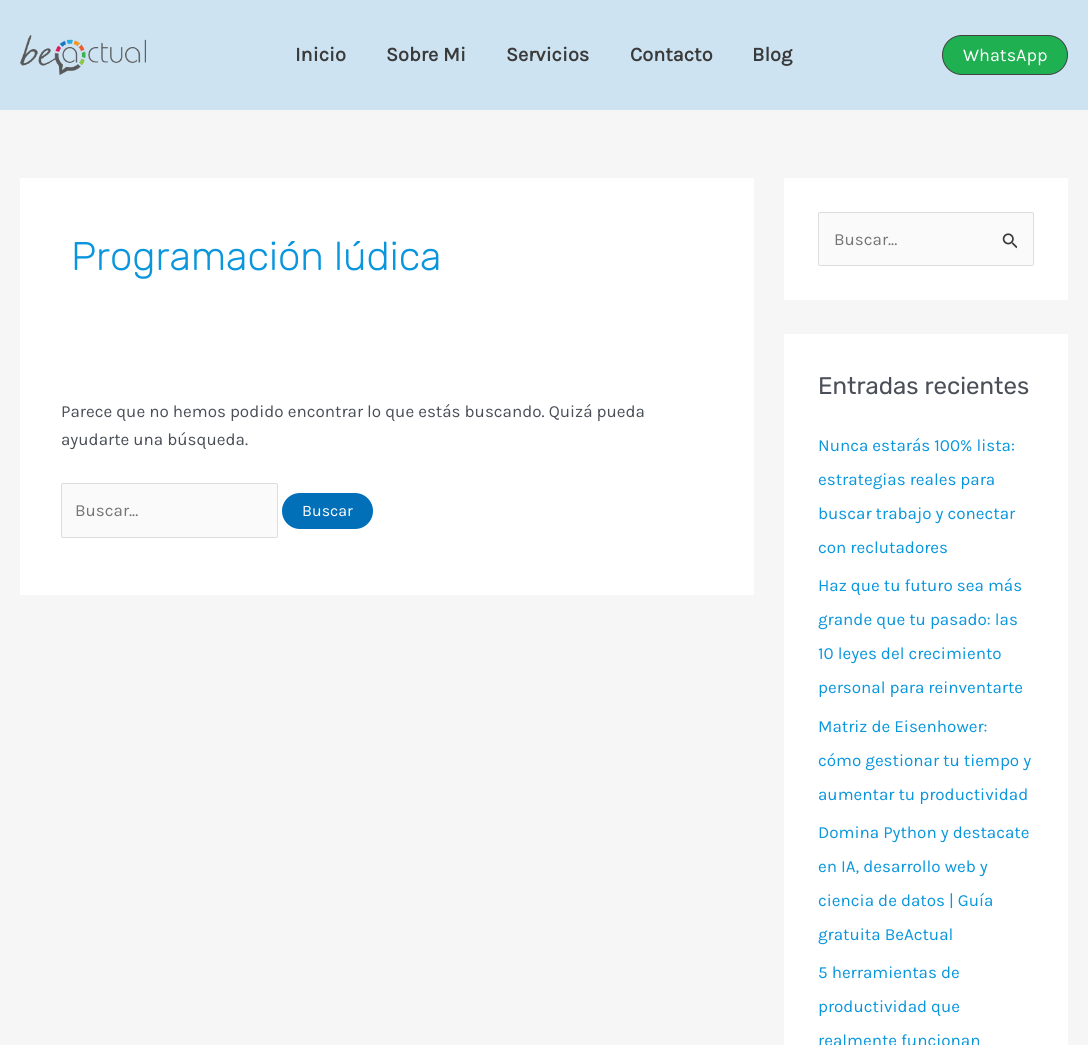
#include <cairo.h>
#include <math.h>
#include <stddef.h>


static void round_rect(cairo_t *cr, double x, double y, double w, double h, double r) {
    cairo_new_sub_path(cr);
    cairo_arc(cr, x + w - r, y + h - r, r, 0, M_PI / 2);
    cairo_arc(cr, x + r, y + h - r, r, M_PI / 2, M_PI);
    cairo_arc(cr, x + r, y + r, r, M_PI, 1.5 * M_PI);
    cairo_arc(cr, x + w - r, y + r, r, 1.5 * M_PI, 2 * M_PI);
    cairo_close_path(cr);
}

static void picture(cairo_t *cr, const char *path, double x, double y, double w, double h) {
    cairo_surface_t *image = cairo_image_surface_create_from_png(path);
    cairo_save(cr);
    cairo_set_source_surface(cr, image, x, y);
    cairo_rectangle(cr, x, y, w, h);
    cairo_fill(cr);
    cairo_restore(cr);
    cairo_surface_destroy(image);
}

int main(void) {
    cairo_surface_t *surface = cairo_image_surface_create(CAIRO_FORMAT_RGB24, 1088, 1045);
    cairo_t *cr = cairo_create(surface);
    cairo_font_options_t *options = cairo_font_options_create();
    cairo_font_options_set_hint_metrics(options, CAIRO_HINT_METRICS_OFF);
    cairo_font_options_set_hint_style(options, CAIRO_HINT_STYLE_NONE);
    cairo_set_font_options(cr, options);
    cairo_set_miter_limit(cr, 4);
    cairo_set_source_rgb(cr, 0.961, 0.961, 0.961);
    cairo_paint(cr);
    cairo_set_source_rgb(cr, 0.804, 0.89, 0.945);
    cairo_rectangle(cr, 0, 0, 1088, 110);
    cairo_fill(cr);
    picture(cr, "img1.png", 20, 35, 126, 40);
    cairo_select_font_face(cr, "Karla", CAIRO_FONT_SLANT_NORMAL, CAIRO_FONT_WEIGHT_BOLD);
    cairo_set_font_size(cr, 20);
    cairo_set_source_rgb(cr, 0.227, 0.227, 0.227);
    cairo_move_to(cr, 295, 61);
    cairo_show_text(cr, "Inicio");
    cairo_move_to(cr, 386, 61);
    cairo_show_text(cr, "Sobre Mi");
    cairo_move_to(cr, 506, 61);
    cairo_show_text(cr, "Servicios");
    cairo_move_to(cr, 630, 61);
    cairo_show_text(cr, "Contacto");
    cairo_move_to(cr, 752, 61);
    cairo_show_text(cr, "Blog");
    cairo_set_source_rgb(cr, 0.118, 0.69, 0.318);
    round_rect(cr, 942.5, 35.5, 125, 39, 19.5);
    cairo_fill_preserve(cr);
    cairo_set_source_rgb(cr, 0.259, 0.259, 0.259);
    cairo_set_line_width(cr, 1);
    cairo_stroke(cr);
    cairo_select_font_face(cr, "Karla", CAIRO_FONT_SLANT_NORMAL, CAIRO_FONT_WEIGHT_NORMAL);
    cairo_set_font_size(cr, 18);
    cairo_set_source_rgb(cr, 1, 1, 1);
    cairo_move_to(cr, 963, 61);
    cairo_show_text(cr, "WhatsApp");
    cairo_rectangle(cr, 20, 178, 734, 417);
    cairo_fill(cr);
    cairo_select_font_face(cr, "Rubik Light", CAIRO_FONT_SLANT_NORMAL, CAIRO_FONT_WEIGHT_NORMAL);
    cairo_set_font_size(cr, 40);
    cairo_set_source_rgb(cr, 0.039, 0.588, 0.863);
    cairo_move_to(cr, 71, 270);
    cairo_show_text(cr, "Programación lúdica");
    cairo_select_font_face(cr, "Karla", CAIRO_FONT_SLANT_NORMAL, CAIRO_FONT_WEIGHT_NORMAL);
    cairo_set_font_size(cr, 17);
    cairo_set_source_rgb(cr, 0.294, 0.31, 0.345);
    cairo_move_to(cr, 61, 417);
    cairo_show_text(cr, "Parece que no hemos podido encontrar lo que estás buscando. Quizá pueda");
    cairo_move_to(cr, 61, 445);
    cairo_show_text(cr, "ayudarte una búsqueda.");
    cairo_set_source_rgb(cr, 0.98, 0.98, 0.98);
    round_rect(cr, 61.5, 483.5, 216, 54, 1.5);
    cairo_fill_preserve(cr);
    cairo_set_source_rgb(cr, 0.867, 0.867, 0.867);
    cairo_stroke(cr);
    cairo_set_source_rgb(cr, 0.459, 0.459, 0.459);
    cairo_move_to(cr, 75, 516);
    cairo_show_text(cr, "Buscar...");
    cairo_set_source_rgb(cr, 0.004, 0.439, 0.725);
    round_rect(cr, 282, 493, 91, 36, 18);
    cairo_fill(cr);
    cairo_set_font_size(cr, 16);
    cairo_set_source_rgb(cr, 1, 1, 1);
    cairo_move_to(cr, 302, 516);
    cairo_show_text(cr, "Buscar");
    cairo_rectangle(cr, 784, 178, 284, 122);
    cairo_fill(cr);
    cairo_set_source_rgb(cr, 0.98, 0.98, 0.98);
    round_rect(cr, 818.5, 212.5, 215, 53, 1.5);
    cairo_fill_preserve(cr);
    cairo_set_source_rgb(cr, 0.867, 0.867, 0.867);
    cairo_stroke(cr);
    cairo_set_font_size(cr, 17);
    cairo_set_source_rgb(cr, 0.459, 0.459, 0.459);
    cairo_move_to(cr, 834, 245);
    cairo_show_text(cr, "Buscar...");
    picture(cr, "img2.png", 1002, 233, 15, 16);
    cairo_set_source_rgb(cr, 1, 1, 1);
    cairo_rectangle(cr, 784, 334, 284, 711);
    cairo_fill(cr);
    cairo_select_font_face(cr, "Rubik", CAIRO_FONT_SLANT_NORMAL, CAIRO_FONT_WEIGHT_NORMAL);
    cairo_set_font_size(cr, 24);
    cairo_set_source_rgb(cr, 0.294, 0.31, 0.345);
    cairo_move_to(cr, 818, 394);
    cairo_show_text(cr, "Entradas recientes");
    cairo_select_font_face(cr, "Karla", CAIRO_FONT_SLANT_NORMAL, CAIRO_FONT_WEIGHT_NORMAL);
    cairo_set_font_size(cr, 17);
    cairo_set_source_rgb(cr, 0.039, 0.588, 0.863);
    cairo_move_to(cr, 818, 451);
    cairo_show_text(cr, "Nunca estarás 100% lista:");
    cairo_move_to(cr, 818, 485);
    cairo_show_text(cr, "estrategias reales para");
    cairo_move_to(cr, 818, 519);
    cairo_show_text(cr, "buscar trabajo y conectar");
    cairo_move_to(cr, 818, 553);
    cairo_show_text(cr, "con reclutadores");
    cairo_move_to(cr, 818, 591);
    cairo_show_text(cr, "Haz que tu futuro sea más");
    cairo_move_to(cr, 818, 625);
    cairo_show_text(cr, "grande que tu pasado: las");
    cairo_move_to(cr, 818, 659);
    cairo_show_text(cr, "10 leyes del crecimiento");
    cairo_move_to(cr, 818, 693);
    cairo_show_text(cr, "personal para reinventarte");
    cairo_move_to(cr, 818, 732);
    cairo_show_text(cr, "Matriz de Eisenhower:");
    cairo_move_to(cr, 818, 766);
    cairo_show_text(cr, "cómo gestionar tu tiempo y");
    cairo_move_to(cr, 818, 800);
    cairo_show_text(cr, "aumentar tu productividad");
    cairo_move_to(cr, 818, 838);
    cairo_show_text(cr, "Domina Python y destacate");
    cairo_move_to(cr, 818, 872);
    cairo_show_text(cr, "en IA, desarrollo web y");
    cairo_move_to(cr, 818, 906);
    cairo_show_text(cr, "ciencia de datos | Guía");
    cairo_move_to(cr, 818, 940);
    cairo_show_text(cr, "gratuita BeActual");
    cairo_move_to(cr, 818, 978);
    cairo_show_text(cr, "5 herramientas de");
    cairo_move_to(cr, 818, 1012);
    cairo_show_text(cr, "productividad que");
    cairo_move_to(cr, 818, 1046);
    cairo_show_text(cr, "realmente funcionan");
    cairo_surface_write_to_png(surface, "page.png");
    cairo_font_options_destroy(options);
    cairo_destroy(cr);
    cairo_surface_destroy(surface);
    return 0;
}
